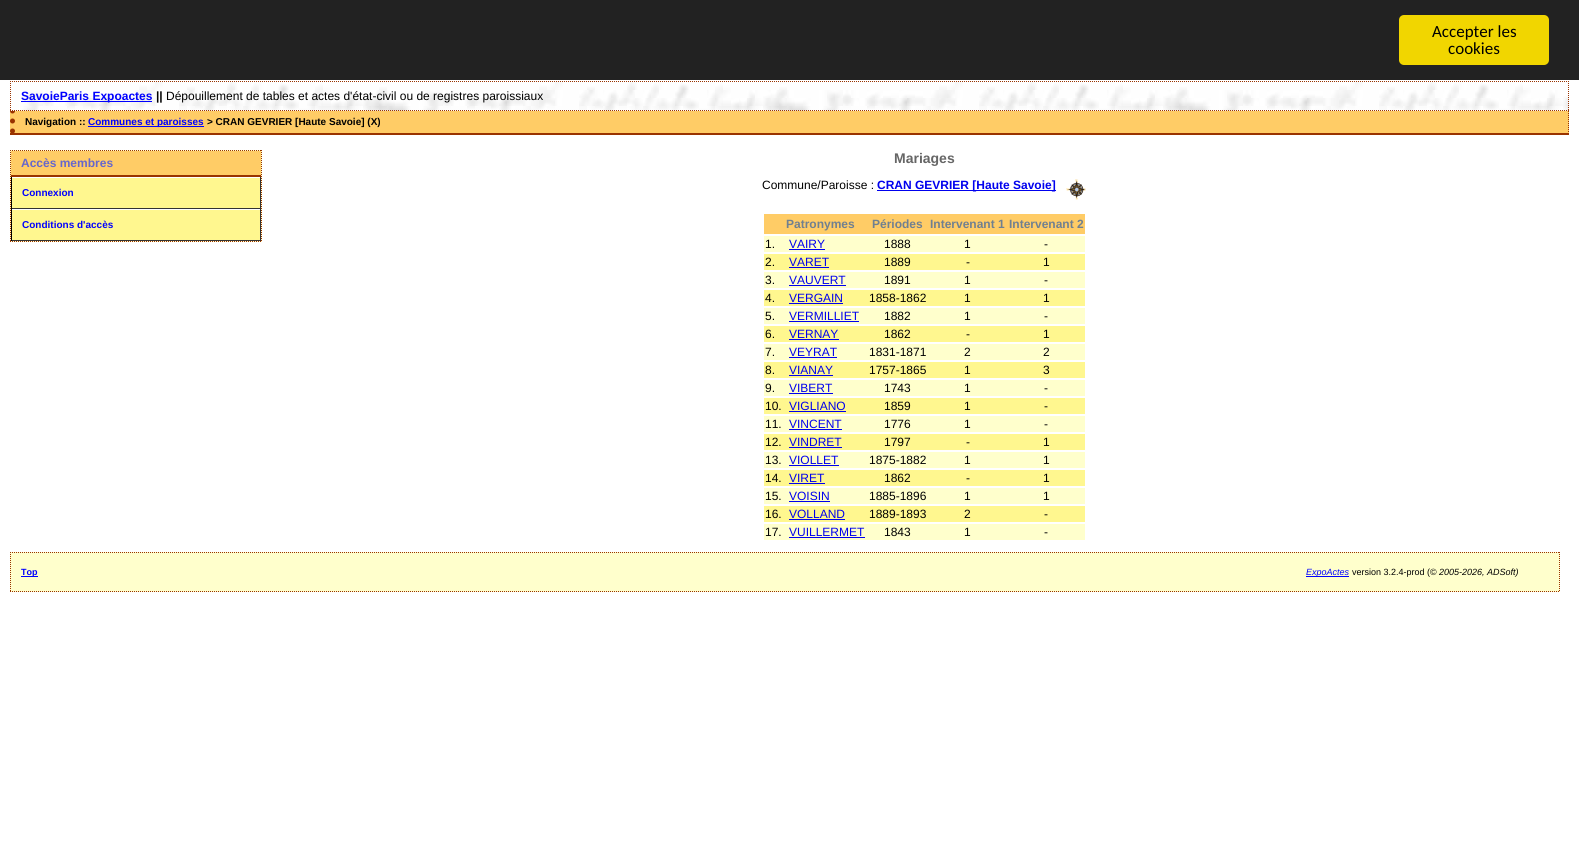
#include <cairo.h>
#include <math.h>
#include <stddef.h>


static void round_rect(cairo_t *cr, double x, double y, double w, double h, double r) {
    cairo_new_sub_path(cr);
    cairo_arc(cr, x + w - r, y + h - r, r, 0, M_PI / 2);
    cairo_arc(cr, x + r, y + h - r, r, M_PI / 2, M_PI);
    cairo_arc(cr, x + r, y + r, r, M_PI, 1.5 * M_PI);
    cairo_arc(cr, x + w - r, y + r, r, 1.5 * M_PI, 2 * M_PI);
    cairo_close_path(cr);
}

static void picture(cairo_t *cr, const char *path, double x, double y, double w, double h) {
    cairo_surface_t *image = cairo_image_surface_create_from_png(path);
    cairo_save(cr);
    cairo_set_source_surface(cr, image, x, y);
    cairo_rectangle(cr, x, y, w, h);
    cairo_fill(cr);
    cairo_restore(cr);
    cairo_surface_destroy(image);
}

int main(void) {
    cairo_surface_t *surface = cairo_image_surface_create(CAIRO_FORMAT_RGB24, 1579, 847);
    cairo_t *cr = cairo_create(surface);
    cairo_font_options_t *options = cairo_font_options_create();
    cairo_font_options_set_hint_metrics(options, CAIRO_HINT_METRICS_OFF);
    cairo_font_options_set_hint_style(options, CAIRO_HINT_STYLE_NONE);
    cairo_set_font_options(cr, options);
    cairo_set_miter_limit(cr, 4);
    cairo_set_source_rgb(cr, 1, 1, 1);
    cairo_paint(cr);
    cairo_set_source_rgb(cr, 0.133, 0.133, 0.133);
    cairo_rectangle(cr, 0, 0, 1579, 80);
    cairo_fill(cr);
    cairo_set_source_rgb(cr, 0.945, 0.839, 0);
    round_rect(cr, 1399, 15, 150, 50, 5);
    cairo_fill(cr);
    cairo_select_font_face(cr, "Carlito", CAIRO_FONT_SLANT_NORMAL, CAIRO_FONT_WEIGHT_NORMAL);
    cairo_set_font_size(cr, 17);
    cairo_set_source_rgb(cr, 0, 0, 0);
    cairo_move_to(cr, 1432, 37);
    cairo_show_text(cr, "Accepter les");
    cairo_move_to(cr, 1448, 54);
    cairo_show_text(cr, "cookies");
    cairo_set_source_rgb(cr, 1, 0.8, 0.4);
    cairo_rectangle(cr, 10, 111, 1559, 22);
    cairo_fill(cr);
    cairo_new_path(cr);
    cairo_move_to(cr, 1568.5, 111);
    cairo_line_to(cr, 1568.5, 135);
    cairo_set_source_rgb(cr, 0.6, 0.2, 0);
    cairo_set_line_width(cr, 1);
    cairo_set_dash(cr, (double[]){1, 1}, 2, 0);
    cairo_stroke(cr);
    cairo_rectangle(cr, 10, 133, 1559, 2);
    cairo_fill(cr);
    cairo_new_path(cr);
    cairo_move_to(cr, 12.5, 111);
    cairo_line_to(cr, 12.5, 135);
    cairo_set_line_width(cr, 5);
    cairo_set_line_cap(cr, CAIRO_LINE_CAP_ROUND);
    cairo_set_dash(cr, (double[]){0, 10}, 2, 0);
    cairo_stroke(cr);
    picture(cr, "img1.png", 10, 81, 1559, 30);
    cairo_new_path(cr);
    cairo_move_to(cr, 10, 81.5);
    cairo_line_to(cr, 1569, 81.5);
    cairo_set_line_width(cr, 1);
    cairo_set_line_cap(cr, CAIRO_LINE_CAP_BUTT);
    cairo_set_dash(cr, (double[]){1, 1}, 2, 0);
    cairo_stroke(cr);
    cairo_new_path(cr);
    cairo_move_to(cr, 1568.5, 81);
    cairo_line_to(cr, 1568.5, 111);
    cairo_stroke(cr);
    cairo_new_path(cr);
    cairo_move_to(cr, 10, 110.5);
    cairo_line_to(cr, 1569, 110.5);
    cairo_stroke(cr);
    cairo_new_path(cr);
    cairo_move_to(cr, 10.5, 81);
    cairo_line_to(cr, 10.5, 111);
    cairo_stroke(cr);
    cairo_set_source_rgb(cr, 0, 0, 1);
    cairo_rectangle(cr, 21, 101, 131, 1);
    cairo_fill(cr);
    cairo_select_font_face(cr, "Liberation Sans", CAIRO_FONT_SLANT_NORMAL, CAIRO_FONT_WEIGHT_BOLD);
    cairo_set_font_size(cr, 12);
    cairo_move_to(cr, 21, 100);
    cairo_show_text(cr, "SavoieParis Expoactes");
    cairo_set_source_rgb(cr, 0, 0, 0);
    cairo_move_to(cr, 156, 100);
    cairo_show_text(cr, "||");
    cairo_select_font_face(cr, "Liberation Sans", CAIRO_FONT_SLANT_NORMAL, CAIRO_FONT_WEIGHT_NORMAL);
    cairo_move_to(cr, 166, 100);
    cairo_show_text(cr, "Dépouillement de tables et actes d'état-civil ou de registres paroissiaux");
    cairo_select_font_face(cr, "Liberation Sans", CAIRO_FONT_SLANT_NORMAL, CAIRO_FONT_WEIGHT_BOLD);
    cairo_set_font_size(cr, 10);
    cairo_move_to(cr, 25, 125);
    cairo_show_text(cr, "Navigation ::");
    cairo_set_source_rgb(cr, 0, 0, 1);
    cairo_rectangle(cr, 88, 126, 116, 1);
    cairo_fill(cr);
    cairo_move_to(cr, 88, 125);
    cairo_show_text(cr, "Communes et paroisses");
    cairo_set_source_rgb(cr, 0, 0, 0);
    cairo_move_to(cr, 207, 125);
    cairo_show_text(cr, "> CRAN GEVRIER [Haute Savoie] (X)");
    cairo_set_source_rgb(cr, 1, 1, 0.8);
    cairo_rectangle(cr, 10, 150, 252, 92);
    cairo_fill(cr);
    cairo_new_path(cr);
    cairo_move_to(cr, 10, 150.5);
    cairo_line_to(cr, 262, 150.5);
    cairo_set_source_rgb(cr, 0.6, 0.2, 0);
    cairo_stroke(cr);
    cairo_new_path(cr);
    cairo_move_to(cr, 261.5, 150);
    cairo_line_to(cr, 261.5, 242);
    cairo_stroke(cr);
    cairo_new_path(cr);
    cairo_move_to(cr, 10, 241.5);
    cairo_line_to(cr, 262, 241.5);
    cairo_stroke(cr);
    cairo_new_path(cr);
    cairo_move_to(cr, 10.5, 150);
    cairo_line_to(cr, 10.5, 242);
    cairo_stroke(cr);
    cairo_set_source_rgb(cr, 1, 0.8, 0.4);
    cairo_rectangle(cr, 11, 151, 250, 24);
    cairo_fill(cr);
    cairo_set_source_rgb(cr, 0.6, 0.2, 0);
    cairo_rectangle(cr, 11, 175, 250, 2);
    cairo_fill(cr);
    cairo_set_font_size(cr, 12);
    cairo_set_source_rgb(cr, 0.4, 0.4, 0.8);
    cairo_move_to(cr, 21, 167);
    cairo_show_text(cr, "Accès membres");
    cairo_set_source_rgb(cr, 1, 0.965, 0.561);
    cairo_rectangle(cr, 12, 178, 248, 30);
    cairo_fill(cr);
    cairo_set_source_rgb(cr, 1, 1, 1);
    cairo_rectangle(cr, 11, 177, 250, 1);
    cairo_fill(cr);
    cairo_set_source_rgb(cr, 0.2, 0.2, 0.2);
    cairo_rectangle(cr, 260, 177, 1, 32);
    cairo_fill(cr);
    cairo_rectangle(cr, 11, 208, 250, 1);
    cairo_fill(cr);
    cairo_set_source_rgb(cr, 0, 0, 0);
    cairo_rectangle(cr, 11, 177, 1, 32);
    cairo_fill(cr);
    cairo_set_font_size(cr, 10);
    cairo_set_source_rgb(cr, 0, 0, 1);
    cairo_move_to(cr, 22, 196);
    cairo_show_text(cr, "Connexion");
    cairo_set_source_rgb(cr, 1, 0.965, 0.561);
    cairo_rectangle(cr, 12, 210, 248, 30);
    cairo_fill(cr);
    cairo_set_source_rgb(cr, 1, 1, 1);
    cairo_rectangle(cr, 11, 209, 250, 1);
    cairo_fill(cr);
    cairo_set_source_rgb(cr, 0.2, 0.2, 0.2);
    cairo_rectangle(cr, 260, 209, 1, 32);
    cairo_fill(cr);
    cairo_rectangle(cr, 11, 240, 250, 1);
    cairo_fill(cr);
    cairo_set_source_rgb(cr, 0, 0, 0);
    cairo_rectangle(cr, 11, 209, 1, 32);
    cairo_fill(cr);
    cairo_set_source_rgb(cr, 0, 0, 1);
    cairo_move_to(cr, 22, 228);
    cairo_show_text(cr, "Conditions d'accès");
    cairo_set_font_size(cr, 14);
    cairo_set_source_rgb(cr, 0.4, 0.4, 0.4);
    cairo_move_to(cr, 894, 163);
    cairo_show_text(cr, "Mariages");
    cairo_select_font_face(cr, "Liberation Sans", CAIRO_FONT_SLANT_NORMAL, CAIRO_FONT_WEIGHT_NORMAL);
    cairo_set_font_size(cr, 12);
    cairo_set_source_rgb(cr, 0, 0, 0);
    cairo_move_to(cr, 762, 189);
    cairo_show_text(cr, "Commune/Paroisse :");
    cairo_set_source_rgb(cr, 0, 0, 0.933);
    cairo_rectangle(cr, 877, 190, 179, 1);
    cairo_fill(cr);
    cairo_select_font_face(cr, "Liberation Sans", CAIRO_FONT_SLANT_NORMAL, CAIRO_FONT_WEIGHT_BOLD);
    cairo_move_to(cr, 877, 189);
    cairo_show_text(cr, "CRAN GEVRIER [Haute Savoie]");
    picture(cr, "img2.png", 1066, 179, 20, 21);
    cairo_set_source_rgb(cr, 1, 0.8, 0.4);
    cairo_rectangle(cr, 764, 214, 321, 20);
    cairo_fill(cr);
    cairo_set_source_rgb(cr, 0.439, 0.502, 0.565);
    cairo_move_to(cr, 786, 228);
    cairo_show_text(cr, "Patronymes");
    cairo_move_to(cr, 872, 228);
    cairo_show_text(cr, "Périodes");
    cairo_move_to(cr, 930, 228);
    cairo_show_text(cr, "Intervenant 1");
    cairo_move_to(cr, 1009, 228);
    cairo_show_text(cr, "Intervenant 2");
    cairo_set_source_rgb(cr, 1, 1, 0.8);
    cairo_rectangle(cr, 764, 236, 321, 16);
    cairo_fill(cr);
    cairo_select_font_face(cr, "Liberation Sans", CAIRO_FONT_SLANT_NORMAL, CAIRO_FONT_WEIGHT_NORMAL);
    cairo_set_source_rgb(cr, 0, 0, 0);
    cairo_move_to(cr, 765, 248);
    cairo_show_text(cr, "1.");
    cairo_set_source_rgb(cr, 0, 0, 0.933);
    cairo_move_to(cr, 789, 248);
    cairo_show_text(cr, "VAIRY");
    cairo_rectangle(cr, 789, 249, 36, 1);
    cairo_fill(cr);
    cairo_set_source_rgb(cr, 0, 0, 0);
    cairo_move_to(cr, 884, 248);
    cairo_show_text(cr, "1888");
    cairo_move_to(cr, 964, 248);
    cairo_show_text(cr, "1");
    cairo_move_to(cr, 1044, 248);
    cairo_show_text(cr, "-");
    cairo_set_source_rgb(cr, 1, 0.965, 0.561);
    cairo_rectangle(cr, 764, 254, 321, 16);
    cairo_fill(cr);
    cairo_set_source_rgb(cr, 0, 0, 0);
    cairo_move_to(cr, 765, 266);
    cairo_show_text(cr, "2.");
    cairo_set_source_rgb(cr, 0, 0, 0.933);
    cairo_move_to(cr, 789, 266);
    cairo_show_text(cr, "VARET");
    cairo_rectangle(cr, 789, 267, 40, 1);
    cairo_fill(cr);
    cairo_set_source_rgb(cr, 0, 0, 0);
    cairo_move_to(cr, 884, 266);
    cairo_show_text(cr, "1889");
    cairo_move_to(cr, 966, 266);
    cairo_show_text(cr, "-");
    cairo_move_to(cr, 1043, 266);
    cairo_show_text(cr, "1");
    cairo_set_source_rgb(cr, 1, 1, 0.8);
    cairo_rectangle(cr, 764, 272, 321, 16);
    cairo_fill(cr);
    cairo_set_source_rgb(cr, 0, 0, 0);
    cairo_move_to(cr, 765, 284);
    cairo_show_text(cr, "3.");
    cairo_set_source_rgb(cr, 0, 0, 0.933);
    cairo_move_to(cr, 789, 284);
    cairo_show_text(cr, "VAUVERT");
    cairo_rectangle(cr, 789, 285, 57, 1);
    cairo_fill(cr);
    cairo_set_source_rgb(cr, 0, 0, 0);
    cairo_move_to(cr, 884, 284);
    cairo_show_text(cr, "1891");
    cairo_move_to(cr, 964, 284);
    cairo_show_text(cr, "1");
    cairo_move_to(cr, 1044, 284);
    cairo_show_text(cr, "-");
    cairo_set_source_rgb(cr, 1, 0.965, 0.561);
    cairo_rectangle(cr, 764, 290, 321, 16);
    cairo_fill(cr);
    cairo_set_source_rgb(cr, 0, 0, 0);
    cairo_move_to(cr, 765, 302);
    cairo_show_text(cr, "4.");
    cairo_set_source_rgb(cr, 0, 0, 0.933);
    cairo_move_to(cr, 789, 302);
    cairo_show_text(cr, "VERGAIN");
    cairo_rectangle(cr, 789, 303, 54, 1);
    cairo_fill(cr);
    cairo_set_source_rgb(cr, 0, 0, 0);
    cairo_move_to(cr, 869, 302);
    cairo_show_text(cr, "1858-1862");
    cairo_move_to(cr, 964, 302);
    cairo_show_text(cr, "1");
    cairo_move_to(cr, 1043, 302);
    cairo_show_text(cr, "1");
    cairo_set_source_rgb(cr, 1, 1, 0.8);
    cairo_rectangle(cr, 764, 308, 321, 16);
    cairo_fill(cr);
    cairo_set_source_rgb(cr, 0, 0, 0);
    cairo_move_to(cr, 765, 320);
    cairo_show_text(cr, "5.");
    cairo_set_source_rgb(cr, 0, 0, 0.933);
    cairo_move_to(cr, 789, 320);
    cairo_show_text(cr, "VERMILLIET");
    cairo_rectangle(cr, 789, 321, 70, 1);
    cairo_fill(cr);
    cairo_set_source_rgb(cr, 0, 0, 0);
    cairo_move_to(cr, 884, 320);
    cairo_show_text(cr, "1882");
    cairo_move_to(cr, 964, 320);
    cairo_show_text(cr, "1");
    cairo_move_to(cr, 1044, 320);
    cairo_show_text(cr, "-");
    cairo_set_source_rgb(cr, 1, 0.965, 0.561);
    cairo_rectangle(cr, 764, 326, 321, 16);
    cairo_fill(cr);
    cairo_set_source_rgb(cr, 0, 0, 0);
    cairo_move_to(cr, 765, 338);
    cairo_show_text(cr, "6.");
    cairo_set_source_rgb(cr, 0, 0, 0.933);
    cairo_move_to(cr, 789, 338);
    cairo_show_text(cr, "VERNAY");
    cairo_rectangle(cr, 789, 339, 50, 1);
    cairo_fill(cr);
    cairo_set_source_rgb(cr, 0, 0, 0);
    cairo_move_to(cr, 884, 338);
    cairo_show_text(cr, "1862");
    cairo_move_to(cr, 966, 338);
    cairo_show_text(cr, "-");
    cairo_move_to(cr, 1043, 338);
    cairo_show_text(cr, "1");
    cairo_set_source_rgb(cr, 1, 1, 0.8);
    cairo_rectangle(cr, 764, 344, 321, 16);
    cairo_fill(cr);
    cairo_set_source_rgb(cr, 0, 0, 0);
    cairo_move_to(cr, 765, 356);
    cairo_show_text(cr, "7.");
    cairo_set_source_rgb(cr, 0, 0, 0.933);
    cairo_move_to(cr, 789, 356);
    cairo_show_text(cr, "VEYRAT");
    cairo_rectangle(cr, 789, 357, 48, 1);
    cairo_fill(cr);
    cairo_set_source_rgb(cr, 0, 0, 0);
    cairo_move_to(cr, 869, 356);
    cairo_show_text(cr, "1831-1871");
    cairo_move_to(cr, 964, 356);
    cairo_show_text(cr, "2");
    cairo_move_to(cr, 1043, 356);
    cairo_show_text(cr, "2");
    cairo_set_source_rgb(cr, 1, 0.965, 0.561);
    cairo_rectangle(cr, 764, 362, 321, 16);
    cairo_fill(cr);
    cairo_set_source_rgb(cr, 0, 0, 0);
    cairo_move_to(cr, 765, 374);
    cairo_show_text(cr, "8.");
    cairo_set_source_rgb(cr, 0, 0, 0.933);
    cairo_move_to(cr, 789, 374);
    cairo_show_text(cr, "VIANAY");
    cairo_rectangle(cr, 789, 375, 44, 1);
    cairo_fill(cr);
    cairo_set_source_rgb(cr, 0, 0, 0);
    cairo_move_to(cr, 869, 374);
    cairo_show_text(cr, "1757-1865");
    cairo_move_to(cr, 964, 374);
    cairo_show_text(cr, "1");
    cairo_move_to(cr, 1043, 374);
    cairo_show_text(cr, "3");
    cairo_set_source_rgb(cr, 1, 1, 0.8);
    cairo_rectangle(cr, 764, 380, 321, 16);
    cairo_fill(cr);
    cairo_set_source_rgb(cr, 0, 0, 0);
    cairo_move_to(cr, 765, 392);
    cairo_show_text(cr, "9.");
    cairo_set_source_rgb(cr, 0, 0, 0.933);
    cairo_move_to(cr, 789, 392);
    cairo_show_text(cr, "VIBERT");
    cairo_rectangle(cr, 789, 393, 44, 1);
    cairo_fill(cr);
    cairo_set_source_rgb(cr, 0, 0, 0);
    cairo_move_to(cr, 884, 392);
    cairo_show_text(cr, "1743");
    cairo_move_to(cr, 964, 392);
    cairo_show_text(cr, "1");
    cairo_move_to(cr, 1044, 392);
    cairo_show_text(cr, "-");
    cairo_set_source_rgb(cr, 1, 0.965, 0.561);
    cairo_rectangle(cr, 764, 398, 321, 16);
    cairo_fill(cr);
    cairo_set_source_rgb(cr, 0, 0, 0);
    cairo_move_to(cr, 765, 410);
    cairo_show_text(cr, "10.");
    cairo_set_source_rgb(cr, 0, 0, 0.933);
    cairo_move_to(cr, 789, 410);
    cairo_show_text(cr, "VIGLIANO");
    cairo_rectangle(cr, 789, 411, 57, 1);
    cairo_fill(cr);
    cairo_set_source_rgb(cr, 0, 0, 0);
    cairo_move_to(cr, 884, 410);
    cairo_show_text(cr, "1859");
    cairo_move_to(cr, 964, 410);
    cairo_show_text(cr, "1");
    cairo_move_to(cr, 1044, 410);
    cairo_show_text(cr, "-");
    cairo_set_source_rgb(cr, 1, 1, 0.8);
    cairo_rectangle(cr, 764, 416, 321, 16);
    cairo_fill(cr);
    cairo_set_source_rgb(cr, 0, 0, 0);
    cairo_move_to(cr, 765, 428);
    cairo_show_text(cr, "11.");
    cairo_set_source_rgb(cr, 0, 0, 0.933);
    cairo_move_to(cr, 789, 428);
    cairo_show_text(cr, "VINCENT");
    cairo_rectangle(cr, 789, 429, 53, 1);
    cairo_fill(cr);
    cairo_set_source_rgb(cr, 0, 0, 0);
    cairo_move_to(cr, 884, 428);
    cairo_show_text(cr, "1776");
    cairo_move_to(cr, 964, 428);
    cairo_show_text(cr, "1");
    cairo_move_to(cr, 1044, 428);
    cairo_show_text(cr, "-");
    cairo_set_source_rgb(cr, 1, 0.965, 0.561);
    cairo_rectangle(cr, 764, 434, 321, 16);
    cairo_fill(cr);
    cairo_set_source_rgb(cr, 0, 0, 0);
    cairo_move_to(cr, 765, 446);
    cairo_show_text(cr, "12.");
    cairo_set_source_rgb(cr, 0, 0, 0.933);
    cairo_move_to(cr, 789, 446);
    cairo_show_text(cr, "VINDRET");
    cairo_rectangle(cr, 789, 447, 53, 1);
    cairo_fill(cr);
    cairo_set_source_rgb(cr, 0, 0, 0);
    cairo_move_to(cr, 884, 446);
    cairo_show_text(cr, "1797");
    cairo_move_to(cr, 966, 446);
    cairo_show_text(cr, "-");
    cairo_move_to(cr, 1043, 446);
    cairo_show_text(cr, "1");
    cairo_set_source_rgb(cr, 1, 1, 0.8);
    cairo_rectangle(cr, 764, 452, 321, 16);
    cairo_fill(cr);
    cairo_set_source_rgb(cr, 0, 0, 0);
    cairo_move_to(cr, 765, 464);
    cairo_show_text(cr, "13.");
    cairo_set_source_rgb(cr, 0, 0, 0.933);
    cairo_move_to(cr, 789, 464);
    cairo_show_text(cr, "VIOLLET");
    cairo_rectangle(cr, 789, 465, 50, 1);
    cairo_fill(cr);
    cairo_set_source_rgb(cr, 0, 0, 0);
    cairo_move_to(cr, 869, 464);
    cairo_show_text(cr, "1875-1882");
    cairo_move_to(cr, 964, 464);
    cairo_show_text(cr, "1");
    cairo_move_to(cr, 1043, 464);
    cairo_show_text(cr, "1");
    cairo_set_source_rgb(cr, 1, 0.965, 0.561);
    cairo_rectangle(cr, 764, 470, 321, 16);
    cairo_fill(cr);
    cairo_set_source_rgb(cr, 0, 0, 0);
    cairo_move_to(cr, 765, 482);
    cairo_show_text(cr, "14.");
    cairo_set_source_rgb(cr, 0, 0, 0.933);
    cairo_move_to(cr, 789, 482);
    cairo_show_text(cr, "VIRET");
    cairo_rectangle(cr, 789, 483, 36, 1);
    cairo_fill(cr);
    cairo_set_source_rgb(cr, 0, 0, 0);
    cairo_move_to(cr, 884, 482);
    cairo_show_text(cr, "1862");
    cairo_move_to(cr, 966, 482);
    cairo_show_text(cr, "-");
    cairo_move_to(cr, 1043, 482);
    cairo_show_text(cr, "1");
    cairo_set_source_rgb(cr, 1, 1, 0.8);
    cairo_rectangle(cr, 764, 488, 321, 16);
    cairo_fill(cr);
    cairo_set_source_rgb(cr, 0, 0, 0);
    cairo_move_to(cr, 765, 500);
    cairo_show_text(cr, "15.");
    cairo_set_source_rgb(cr, 0, 0, 0.933);
    cairo_move_to(cr, 789, 500);
    cairo_show_text(cr, "VOISIN");
    cairo_rectangle(cr, 789, 501, 41, 1);
    cairo_fill(cr);
    cairo_set_source_rgb(cr, 0, 0, 0);
    cairo_move_to(cr, 869, 500);
    cairo_show_text(cr, "1885-1896");
    cairo_move_to(cr, 964, 500);
    cairo_show_text(cr, "1");
    cairo_move_to(cr, 1043, 500);
    cairo_show_text(cr, "1");
    cairo_set_source_rgb(cr, 1, 0.965, 0.561);
    cairo_rectangle(cr, 764, 506, 321, 16);
    cairo_fill(cr);
    cairo_set_source_rgb(cr, 0, 0, 0);
    cairo_move_to(cr, 765, 518);
    cairo_show_text(cr, "16.");
    cairo_set_source_rgb(cr, 0, 0, 0.933);
    cairo_move_to(cr, 789, 518);
    cairo_show_text(cr, "VOLLAND");
    cairo_rectangle(cr, 789, 519, 56, 1);
    cairo_fill(cr);
    cairo_set_source_rgb(cr, 0, 0, 0);
    cairo_move_to(cr, 869, 518);
    cairo_show_text(cr, "1889-1893");
    cairo_move_to(cr, 964, 518);
    cairo_show_text(cr, "2");
    cairo_move_to(cr, 1044, 518);
    cairo_show_text(cr, "-");
    cairo_set_source_rgb(cr, 1, 1, 0.8);
    cairo_rectangle(cr, 764, 524, 321, 16);
    cairo_fill(cr);
    cairo_set_source_rgb(cr, 0, 0, 0);
    cairo_move_to(cr, 765, 536);
    cairo_show_text(cr, "17.");
    cairo_set_source_rgb(cr, 0, 0, 0.933);
    cairo_move_to(cr, 789, 536);
    cairo_show_text(cr, "VUILLERMET");
    cairo_rectangle(cr, 789, 537, 76, 1);
    cairo_fill(cr);
    cairo_set_source_rgb(cr, 0, 0, 0);
    cairo_move_to(cr, 884, 536);
    cairo_show_text(cr, "1843");
    cairo_move_to(cr, 964, 536);
    cairo_show_text(cr, "1");
    cairo_move_to(cr, 1044, 536);
    cairo_show_text(cr, "-");
    cairo_set_source_rgb(cr, 1, 1, 0.8);
    cairo_rectangle(cr, 10, 552, 1550, 40);
    cairo_fill(cr);
    cairo_new_path(cr);
    cairo_move_to(cr, 10, 552.5);
    cairo_line_to(cr, 1560, 552.5);
    cairo_set_source_rgb(cr, 0.6, 0.2, 0);
    cairo_stroke(cr);
    cairo_new_path(cr);
    cairo_move_to(cr, 1559.5, 552);
    cairo_line_to(cr, 1559.5, 592);
    cairo_stroke(cr);
    cairo_new_path(cr);
    cairo_move_to(cr, 10, 591.5);
    cairo_line_to(cr, 1560, 591.5);
    cairo_stroke(cr);
    cairo_new_path(cr);
    cairo_move_to(cr, 10.5, 552);
    cairo_line_to(cr, 10.5, 592);
    cairo_stroke(cr);
    cairo_set_source_rgb(cr, 0, 0, 1);
    cairo_rectangle(cr, 21, 576, 17, 1);
    cairo_fill(cr);
    cairo_select_font_face(cr, "Liberation Sans", CAIRO_FONT_SLANT_NORMAL, CAIRO_FONT_WEIGHT_BOLD);
    cairo_set_font_size(cr, 9);
    cairo_move_to(cr, 21, 575);
    cairo_show_text(cr, "Top");
    cairo_rectangle(cr, 1306, 576, 43, 1);
    cairo_fill(cr);
    cairo_select_font_face(cr, "Liberation Sans", CAIRO_FONT_SLANT_ITALIC, CAIRO_FONT_WEIGHT_NORMAL);
    cairo_move_to(cr, 1306, 575);
    cairo_show_text(cr, "ExpoActes");
    cairo_select_font_face(cr, "Liberation Sans", CAIRO_FONT_SLANT_NORMAL, CAIRO_FONT_WEIGHT_NORMAL);
    cairo_set_source_rgb(cr, 0, 0, 0);
    cairo_move_to(cr, 1352, 575);
    cairo_show_text(cr, "version 3.2.4-prod (©");
    cairo_select_font_face(cr, "Liberation Sans", CAIRO_FONT_SLANT_ITALIC, CAIRO_FONT_WEIGHT_NORMAL);
    cairo_move_to(cr, 1439, 575);
    cairo_show_text(cr, "2005-2026, ADSoft)");
    cairo_surface_write_to_png(surface, "page.png");
    cairo_font_options_destroy(options);
    cairo_destroy(cr);
    cairo_surface_destroy(surface);
    return 0;
}
